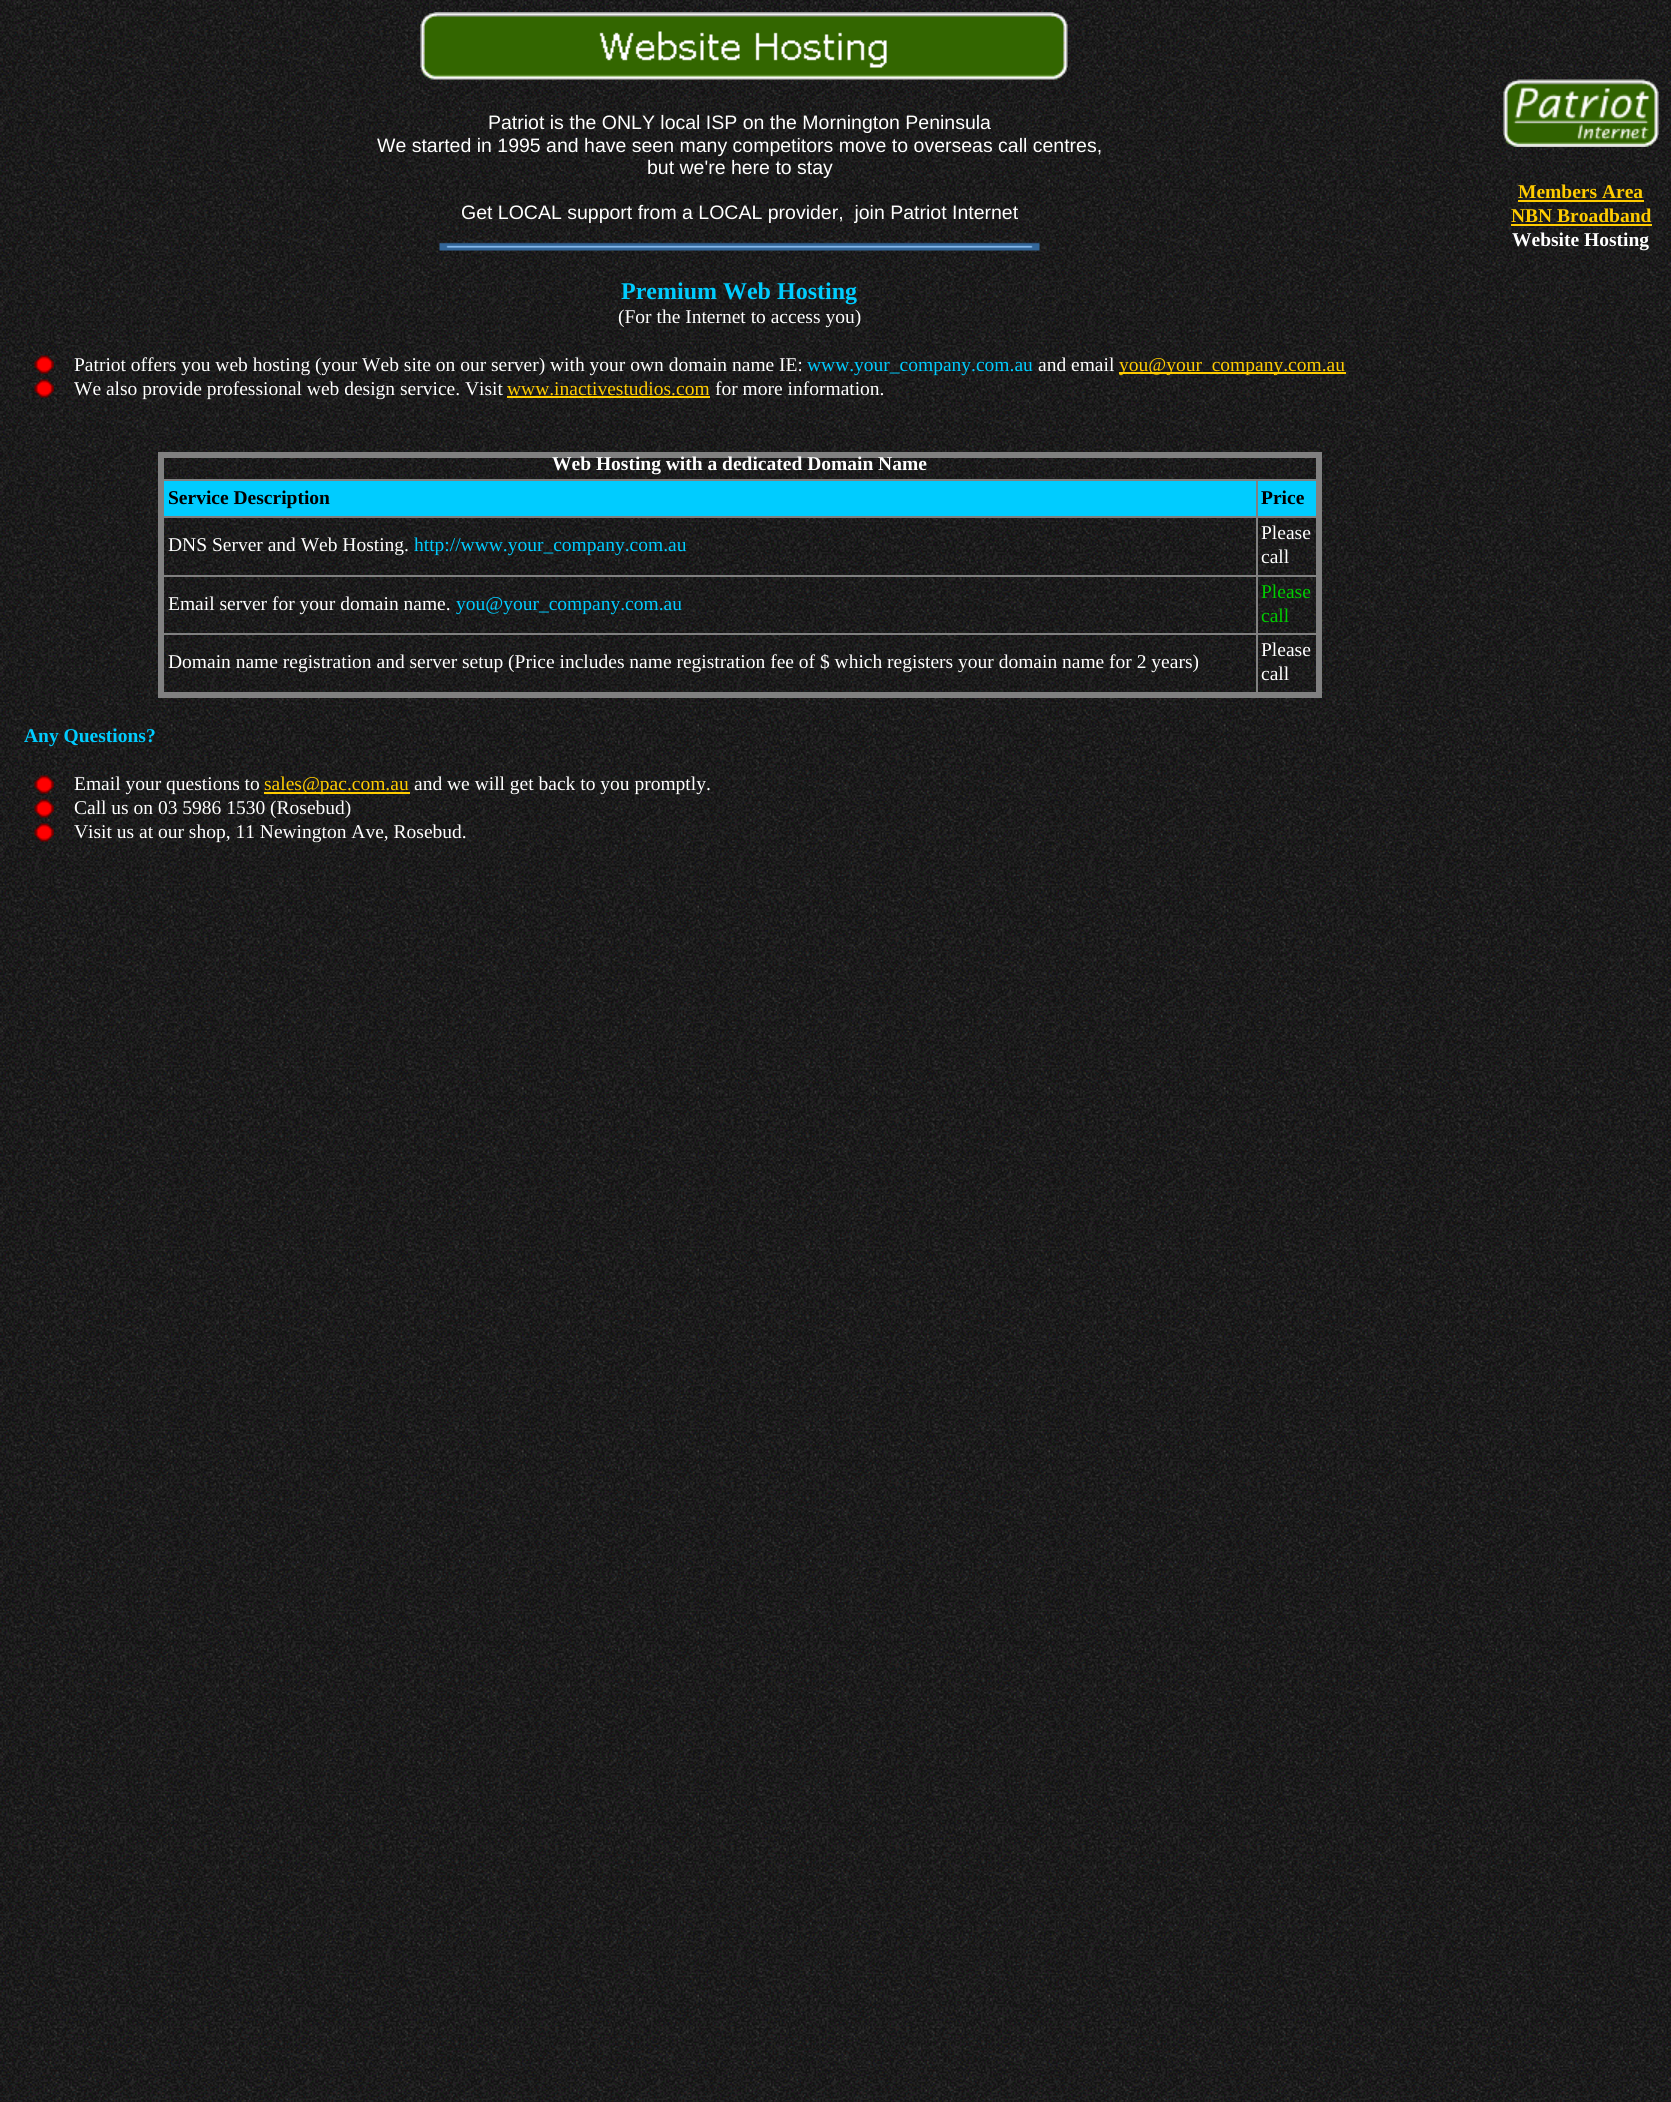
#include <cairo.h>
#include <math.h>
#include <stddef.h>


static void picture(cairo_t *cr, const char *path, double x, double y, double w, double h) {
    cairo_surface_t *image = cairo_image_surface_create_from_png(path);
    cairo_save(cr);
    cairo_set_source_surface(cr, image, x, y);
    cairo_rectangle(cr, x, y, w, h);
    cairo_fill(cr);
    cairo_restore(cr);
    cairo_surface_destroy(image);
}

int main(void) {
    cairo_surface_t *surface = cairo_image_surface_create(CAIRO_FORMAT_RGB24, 1671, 2102);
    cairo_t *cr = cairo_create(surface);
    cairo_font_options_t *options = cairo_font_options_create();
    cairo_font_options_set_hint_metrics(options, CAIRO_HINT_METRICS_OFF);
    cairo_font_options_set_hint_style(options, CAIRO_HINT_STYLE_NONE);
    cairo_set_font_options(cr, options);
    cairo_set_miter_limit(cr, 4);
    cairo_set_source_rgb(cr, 1, 1, 1);
    cairo_paint(cr);
    picture(cr, "img1.png", 0, 0, 1671, 2102);
    picture(cr, "img2.png", 420, 12, 648, 68);
    cairo_select_font_face(cr, "Liberation Sans", CAIRO_FONT_SLANT_NORMAL, CAIRO_FONT_WEIGHT_NORMAL);
    cairo_set_font_size(cr, 19.5);
    cairo_set_source_rgb(cr, 1, 1, 1);
    cairo_move_to(cr, 488, 129);
    cairo_show_text(cr, "Patriot is the ONLY local ISP on the Mornington Peninsula");
    cairo_move_to(cr, 377, 152);
    cairo_show_text(cr, "We started in 1995 and have seen many competitors move to overseas call centres,");
    cairo_move_to(cr, 647, 174);
    cairo_show_text(cr, "but we're here to stay");
    cairo_move_to(cr, 461, 219);
    cairo_show_text(cr, "Get LOCAL support from a LOCAL provider,  join Patriot Internet");
    picture(cr, "img3.png", 439, 242, 601, 9);
    cairo_select_font_face(cr, "Liberation Serif", CAIRO_FONT_SLANT_NORMAL, CAIRO_FONT_WEIGHT_BOLD);
    cairo_set_font_size(cr, 24);
    cairo_set_source_rgb(cr, 0, 0.8, 1);
    cairo_move_to(cr, 621, 299);
    cairo_show_text(cr, "Premium Web Hosting");
    cairo_select_font_face(cr, "Liberation Serif", CAIRO_FONT_SLANT_NORMAL, CAIRO_FONT_WEIGHT_NORMAL);
    cairo_set_font_size(cr, 19.5);
    cairo_set_source_rgb(cr, 1, 1, 1);
    cairo_move_to(cr, 618, 323);
    cairo_show_text(cr, "(For the Internet to access you)");
    picture(cr, "img4.png", 34, 355, 20, 19);
    cairo_move_to(cr, 74, 371);
    cairo_show_text(cr, "Patriot offers you web hosting (your Web site on our server) with your own domain name IE:");
    cairo_set_source_rgb(cr, 0, 0.8, 1);
    cairo_move_to(cr, 807, 371);
    cairo_show_text(cr, "www.your_company.com.au");
    cairo_set_source_rgb(cr, 1, 1, 1);
    cairo_move_to(cr, 1038, 371);
    cairo_show_text(cr, "and email");
    cairo_set_source_rgb(cr, 1, 0.8, 0);
    cairo_rectangle(cr, 1119, 372, 227, 2);
    cairo_fill(cr);
    cairo_move_to(cr, 1119, 371);
    cairo_show_text(cr, "you@your_company.com.au");
    picture(cr, "img5.png", 34, 379, 20, 19);
    cairo_set_source_rgb(cr, 1, 1, 1);
    cairo_move_to(cr, 74, 395);
    cairo_show_text(cr, "We also provide professional web design service. Visit");
    cairo_set_source_rgb(cr, 1, 0.8, 0);
    cairo_rectangle(cr, 507, 396, 203, 2);
    cairo_fill(cr);
    cairo_move_to(cr, 507, 395);
    cairo_show_text(cr, "www.inactivestudios.com");
    cairo_set_source_rgb(cr, 1, 1, 1);
    cairo_move_to(cr, 715, 395);
    cairo_show_text(cr, "for more information.");
    cairo_set_source_rgb(cr, 0.502, 0.502, 0.502);
    cairo_rectangle(cr, 158, 452, 1164, 6);
    cairo_fill(cr);
    cairo_rectangle(cr, 1256, 479, 64, 2);
    cairo_fill(cr);
    cairo_rectangle(cr, 1256, 516, 64, 2);
    cairo_fill(cr);
    cairo_rectangle(cr, 1256, 575, 64, 2);
    cairo_fill(cr);
    cairo_rectangle(cr, 1256, 633, 64, 2);
    cairo_fill(cr);
    cairo_rectangle(cr, 1316, 452, 6, 246);
    cairo_fill(cr);
    cairo_rectangle(cr, 1256, 633, 2, 62);
    cairo_fill(cr);
    cairo_rectangle(cr, 158, 692, 1164, 6);
    cairo_fill(cr);
    cairo_rectangle(cr, 161, 633, 1096, 2);
    cairo_fill(cr);
    cairo_rectangle(cr, 1256, 575, 2, 60);
    cairo_fill(cr);
    cairo_rectangle(cr, 161, 575, 1096, 2);
    cairo_fill(cr);
    cairo_rectangle(cr, 1256, 516, 2, 60);
    cairo_fill(cr);
    cairo_rectangle(cr, 161, 516, 1096, 2);
    cairo_fill(cr);
    cairo_rectangle(cr, 1256, 479, 2, 39);
    cairo_fill(cr);
    cairo_rectangle(cr, 161, 479, 1096, 2);
    cairo_fill(cr);
    cairo_rectangle(cr, 158, 452, 6, 246);
    cairo_fill(cr);
    cairo_select_font_face(cr, "Liberation Serif", CAIRO_FONT_SLANT_NORMAL, CAIRO_FONT_WEIGHT_BOLD);
    cairo_set_source_rgb(cr, 1, 1, 1);
    cairo_move_to(cr, 552, 470);
    cairo_show_text(cr, "Web Hosting with a dedicated Domain Name");
    cairo_set_source_rgb(cr, 0, 0.8, 1);
    cairo_rectangle(cr, 164, 481, 1092, 35);
    cairo_fill(cr);
    cairo_set_source_rgb(cr, 0, 0, 0);
    cairo_move_to(cr, 168, 504);
    cairo_show_text(cr, "Service Description");
    cairo_set_source_rgb(cr, 0, 0.8, 1);
    cairo_rectangle(cr, 1258, 481, 58, 35);
    cairo_fill(cr);
    cairo_set_source_rgb(cr, 0, 0, 0);
    cairo_move_to(cr, 1261, 504);
    cairo_show_text(cr, "Price");
    cairo_select_font_face(cr, "Liberation Serif", CAIRO_FONT_SLANT_NORMAL, CAIRO_FONT_WEIGHT_NORMAL);
    cairo_set_source_rgb(cr, 1, 1, 1);
    cairo_move_to(cr, 168, 551);
    cairo_show_text(cr, "DNS Server and Web Hosting.");
    cairo_set_source_rgb(cr, 0, 0.8, 1);
    cairo_move_to(cr, 414, 551);
    cairo_show_text(cr, "http://www.your_company.com.au");
    cairo_set_source_rgb(cr, 1, 1, 1);
    cairo_move_to(cr, 1261, 539);
    cairo_show_text(cr, "Please");
    cairo_move_to(cr, 1261, 563);
    cairo_show_text(cr, "call");
    cairo_move_to(cr, 168, 610);
    cairo_show_text(cr, "Email server for your domain name.");
    cairo_set_source_rgb(cr, 0, 0.8, 1);
    cairo_move_to(cr, 456, 610);
    cairo_show_text(cr, "you@your_company.com.au");
    cairo_set_source_rgb(cr, 0, 0.8, 0);
    cairo_move_to(cr, 1261, 598);
    cairo_show_text(cr, "Please");
    cairo_move_to(cr, 1261, 622);
    cairo_show_text(cr, "call");
    cairo_set_source_rgb(cr, 1, 1, 1);
    cairo_move_to(cr, 168, 668);
    cairo_show_text(cr, "Domain name registration and server setup (Price includes name registration fee of $ which registers your domain name for 2 years)");
    cairo_move_to(cr, 1261, 656);
    cairo_show_text(cr, "Please");
    cairo_move_to(cr, 1261, 680);
    cairo_show_text(cr, "call");
    cairo_select_font_face(cr, "Liberation Serif", CAIRO_FONT_SLANT_NORMAL, CAIRO_FONT_WEIGHT_BOLD);
    cairo_set_source_rgb(cr, 0, 0.8, 1);
    cairo_move_to(cr, 24, 742);
    cairo_show_text(cr, "Any Questions?");
    picture(cr, "img6.png", 34, 775, 20, 19);
    cairo_select_font_face(cr, "Liberation Serif", CAIRO_FONT_SLANT_NORMAL, CAIRO_FONT_WEIGHT_NORMAL);
    cairo_set_source_rgb(cr, 1, 1, 1);
    cairo_move_to(cr, 74, 790);
    cairo_show_text(cr, "Email your questions to");
    cairo_set_source_rgb(cr, 1, 0.8, 0);
    cairo_rectangle(cr, 264, 792, 146, 2);
    cairo_fill(cr);
    cairo_move_to(cr, 264, 790);
    cairo_show_text(cr, "sales@pac.com.au");
    cairo_set_source_rgb(cr, 1, 1, 1);
    cairo_move_to(cr, 414, 790);
    cairo_show_text(cr, "and we will get back to you promptly.");
    picture(cr, "img7.png", 34, 799, 20, 19);
    cairo_move_to(cr, 74, 814);
    cairo_show_text(cr, "Call us on 03 5986 1530 (Rosebud)");
    picture(cr, "img8.png", 34, 823, 20, 19);
    cairo_move_to(cr, 74, 838);
    cairo_show_text(cr, "Visit us at our shop, 11 Newington Ave, Rosebud.");
    picture(cr, "img9.png", 1503, 79, 156, 68);
    cairo_select_font_face(cr, "Liberation Serif", CAIRO_FONT_SLANT_NORMAL, CAIRO_FONT_WEIGHT_BOLD);
    cairo_set_source_rgb(cr, 1, 0.8, 0);
    cairo_move_to(cr, 1518, 198);
    cairo_show_text(cr, "Members Area");
    cairo_rectangle(cr, 1518, 200, 126, 2);
    cairo_fill(cr);
    cairo_move_to(cr, 1511, 222);
    cairo_show_text(cr, "NBN Broadband");
    cairo_rectangle(cr, 1511, 224, 141, 2);
    cairo_fill(cr);
    cairo_set_source_rgb(cr, 1, 1, 1);
    cairo_move_to(cr, 1512, 246);
    cairo_show_text(cr, "Website Hosting");
    cairo_surface_write_to_png(surface, "page.png");
    cairo_font_options_destroy(options);
    cairo_destroy(cr);
    cairo_surface_destroy(surface);
    return 0;
}
